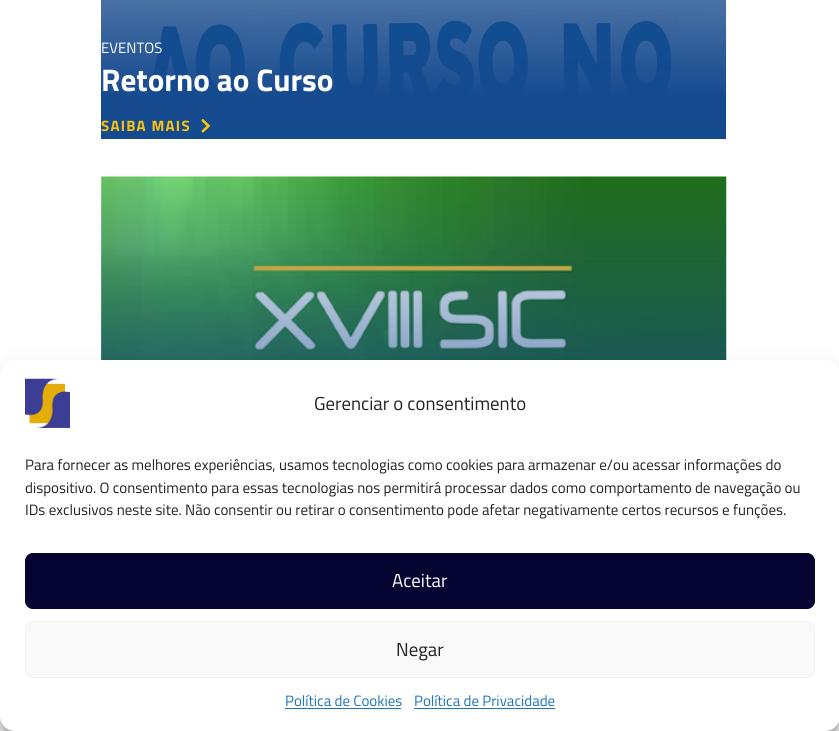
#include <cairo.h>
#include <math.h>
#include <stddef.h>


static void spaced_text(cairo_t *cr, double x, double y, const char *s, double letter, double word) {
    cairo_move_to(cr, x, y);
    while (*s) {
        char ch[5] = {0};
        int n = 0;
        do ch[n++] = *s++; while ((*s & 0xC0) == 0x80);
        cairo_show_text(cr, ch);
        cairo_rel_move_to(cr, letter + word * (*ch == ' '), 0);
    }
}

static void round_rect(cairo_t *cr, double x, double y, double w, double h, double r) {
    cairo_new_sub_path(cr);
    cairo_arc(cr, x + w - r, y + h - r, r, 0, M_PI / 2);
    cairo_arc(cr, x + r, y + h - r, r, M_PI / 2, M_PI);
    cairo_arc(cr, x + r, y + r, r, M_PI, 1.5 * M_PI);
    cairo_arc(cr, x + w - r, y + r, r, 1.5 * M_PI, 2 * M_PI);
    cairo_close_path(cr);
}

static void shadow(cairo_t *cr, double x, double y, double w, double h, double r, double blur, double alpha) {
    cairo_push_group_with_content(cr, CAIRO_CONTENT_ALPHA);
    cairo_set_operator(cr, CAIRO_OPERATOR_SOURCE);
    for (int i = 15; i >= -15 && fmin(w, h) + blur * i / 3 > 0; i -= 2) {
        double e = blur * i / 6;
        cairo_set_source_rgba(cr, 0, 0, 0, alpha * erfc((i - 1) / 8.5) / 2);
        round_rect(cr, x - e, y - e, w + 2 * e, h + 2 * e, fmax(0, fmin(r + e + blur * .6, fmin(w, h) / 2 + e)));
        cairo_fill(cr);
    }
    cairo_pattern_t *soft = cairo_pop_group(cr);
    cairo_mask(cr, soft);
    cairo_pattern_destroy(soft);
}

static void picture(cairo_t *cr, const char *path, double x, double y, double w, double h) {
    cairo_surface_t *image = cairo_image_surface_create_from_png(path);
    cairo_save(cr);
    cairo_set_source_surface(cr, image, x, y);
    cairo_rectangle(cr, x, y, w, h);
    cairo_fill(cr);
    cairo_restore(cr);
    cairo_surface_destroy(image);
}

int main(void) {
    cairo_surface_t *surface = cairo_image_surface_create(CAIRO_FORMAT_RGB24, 839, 731);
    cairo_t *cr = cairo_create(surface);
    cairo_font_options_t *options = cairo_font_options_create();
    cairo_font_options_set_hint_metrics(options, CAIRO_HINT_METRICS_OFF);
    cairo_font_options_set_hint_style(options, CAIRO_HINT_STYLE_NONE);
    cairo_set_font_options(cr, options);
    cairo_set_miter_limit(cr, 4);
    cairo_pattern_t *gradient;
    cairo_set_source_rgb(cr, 1, 1, 1);
    cairo_paint(cr);
    picture(cr, "img1.png", 101, 0, 626, 139);
    gradient = cairo_pattern_create_linear(414, -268, 414, 139);
    cairo_pattern_add_color_stop_rgba(gradient, 0, 0.082, 0.29, 0.561, 0);
    cairo_pattern_add_color_stop_rgba(gradient, 0.9, 0.082, 0.29, 0.561, 1);
    cairo_set_source(cr, gradient);
    cairo_pattern_destroy(gradient);
    cairo_rectangle(cr, 101, 0, 625, 139);
    cairo_fill(cr);
    cairo_select_font_face(cr, "Titillium Web", CAIRO_FONT_SLANT_NORMAL, CAIRO_FONT_WEIGHT_NORMAL);
    cairo_set_font_size(cr, 15);
    cairo_set_source_rgb(cr, 1, 1, 1);
    cairo_move_to(cr, 101, 53);
    cairo_show_text(cr, "EVENTOS");
    cairo_select_font_face(cr, "Titillium Web", CAIRO_FONT_SLANT_NORMAL, CAIRO_FONT_WEIGHT_BOLD);
    cairo_set_font_size(cr, 31.25);
    cairo_move_to(cr, 101, 91);
    cairo_show_text(cr, "Retorno ao Curso");
    cairo_set_font_size(cr, 15);
    cairo_set_source_rgb(cr, 0.988, 0.769, 0.059);
    spaced_text(cr, 101, 131, "SAIBA MAIS", 1.25, 0);
    picture(cr, "img2.png", 201, 119, 9, 14);
    picture(cr, "img3.png", 101, 176, 626, 184);
    gradient = cairo_pattern_create_linear(414, 176, 414, 583);
    cairo_pattern_add_color_stop_rgba(gradient, 0, 0.082, 0.29, 0.561, 0);
    cairo_pattern_add_color_stop_rgba(gradient, 0.9, 0.082, 0.29, 0.561, 1);
    cairo_set_source(cr, gradient);
    cairo_pattern_destroy(gradient);
    cairo_rectangle(cr, 101, 184, 625, 176);
    cairo_fill(cr);
    cairo_set_source_rgb(cr, 0, 0, 0);
    shadow(cr, 0, 368, 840, 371, 15, 4, 0.23);
    shadow(cr, 0, 373, 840, 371, 15, 12.5, 0.19);
    cairo_set_source_rgb(cr, 1, 1, 1);
    round_rect(cr, 0, 360, 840, 371, 15);
    cairo_fill(cr);
    picture(cr, "img4.png", 25, 378, 45, 50);
    cairo_select_font_face(cr, "Titillium Web", CAIRO_FONT_SLANT_NORMAL, CAIRO_FONT_WEIGHT_NORMAL);
    cairo_set_font_size(cr, 18.75);
    cairo_set_source_rgb(cr, 0.133, 0.133, 0.133);
    cairo_move_to(cr, 314, 410);
    cairo_show_text(cr, "Gerenciar o consentimento");
    cairo_set_font_size(cr, 15);
    cairo_move_to(cr, 25, 470);
    cairo_show_text(cr, "Para fornecer as melhores experiências, usamos tecnologias como cookies para armazenar e/ou acessar informações do");
    cairo_move_to(cr, 25, 493);
    cairo_show_text(cr, "dispositivo. O consentimento para essas tecnologias nos permitirá processar dados como comportamento de navegação ou");
    cairo_move_to(cr, 25, 515);
    cairo_show_text(cr, "IDs exclusivos neste site. Não consentir ou retirar o consentimento pode afetar negativamente certos recursos e funções.");
    cairo_set_source_rgb(cr, 0.024, 0.016, 0.192);
    round_rect(cr, 25.5, 553.5, 789, 55, 7.5);
    cairo_fill_preserve(cr);
    cairo_set_line_width(cr, 1);
    cairo_stroke(cr);
    cairo_set_font_size(cr, 18.75);
    cairo_set_source_rgb(cr, 1, 1, 1);
    cairo_move_to(cr, 392, 587);
    cairo_show_text(cr, "Aceitar");
    cairo_set_source_rgb(cr, 0.976, 0.976, 0.976);
    round_rect(cr, 25.5, 621.5, 789, 56, 7.5);
    cairo_fill_preserve(cr);
    cairo_set_source_rgb(cr, 0.949, 0.949, 0.949);
    cairo_stroke(cr);
    cairo_set_source_rgb(cr, 0.133, 0.133, 0.133);
    cairo_move_to(cr, 396, 656);
    cairo_show_text(cr, "Negar");
    cairo_set_font_size(cr, 15);
    cairo_set_source_rgb(cr, 0.118, 0.451, 0.745);
    cairo_move_to(cr, 285, 706);
    cairo_show_text(cr, "Política de Cookies");
    cairo_rectangle(cr, 285, 708, 116, 1);
    cairo_fill(cr);
    cairo_move_to(cr, 414, 706);
    cairo_show_text(cr, "Política de Privacidade");
    cairo_rectangle(cr, 414, 708, 141, 1);
    cairo_fill(cr);
    cairo_surface_write_to_png(surface, "page.png");
    cairo_font_options_destroy(options);
    cairo_destroy(cr);
    cairo_surface_destroy(surface);
    return 0;
}
